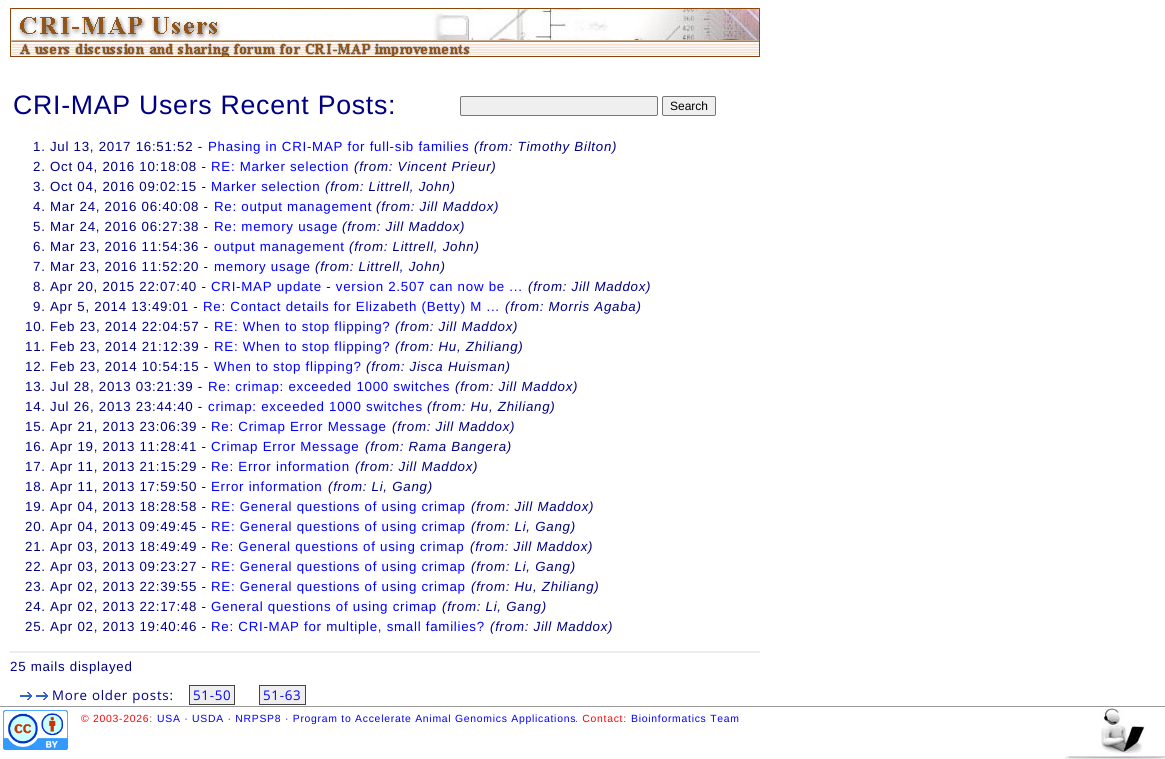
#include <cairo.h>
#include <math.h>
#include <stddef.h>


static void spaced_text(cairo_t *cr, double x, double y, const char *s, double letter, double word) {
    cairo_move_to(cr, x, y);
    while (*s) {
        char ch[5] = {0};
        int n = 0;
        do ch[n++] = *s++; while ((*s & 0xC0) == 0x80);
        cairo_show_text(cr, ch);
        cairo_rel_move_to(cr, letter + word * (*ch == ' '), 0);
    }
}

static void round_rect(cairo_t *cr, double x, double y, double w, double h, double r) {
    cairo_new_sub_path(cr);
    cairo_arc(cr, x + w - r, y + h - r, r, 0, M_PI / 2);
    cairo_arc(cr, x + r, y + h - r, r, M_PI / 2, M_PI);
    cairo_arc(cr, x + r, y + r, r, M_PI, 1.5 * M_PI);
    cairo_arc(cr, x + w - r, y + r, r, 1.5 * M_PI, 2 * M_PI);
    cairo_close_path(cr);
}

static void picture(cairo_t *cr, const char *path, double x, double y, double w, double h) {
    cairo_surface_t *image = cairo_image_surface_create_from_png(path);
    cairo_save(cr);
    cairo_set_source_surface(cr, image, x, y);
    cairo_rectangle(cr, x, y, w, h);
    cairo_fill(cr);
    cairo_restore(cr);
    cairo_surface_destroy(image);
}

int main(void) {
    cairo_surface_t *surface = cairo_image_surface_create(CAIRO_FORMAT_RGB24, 1165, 759);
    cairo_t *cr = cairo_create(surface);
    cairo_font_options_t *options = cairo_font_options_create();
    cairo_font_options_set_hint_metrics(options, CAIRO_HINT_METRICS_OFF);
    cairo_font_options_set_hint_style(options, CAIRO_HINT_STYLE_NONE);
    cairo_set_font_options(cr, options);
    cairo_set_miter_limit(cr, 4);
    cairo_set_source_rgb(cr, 1, 1, 1);
    cairo_paint(cr);
    picture(cr, "img1.png", 10, 8, 750, 49);
    cairo_select_font_face(cr, "Liberation Sans", CAIRO_FONT_SLANT_NORMAL, CAIRO_FONT_WEIGHT_NORMAL);
    cairo_set_font_size(cr, 26.7);
    cairo_set_source_rgb(cr, 0, 0, 0.502);
    spaced_text(cr, 13, 114, "CRI-MAP Users Recent Posts:", 0.73, 0);
    cairo_set_source_rgb(cr, 0.937, 0.937, 0.937);
    round_rect(cr, 460.5, 96.5, 197, 19, 1.5);
    cairo_fill_preserve(cr);
    cairo_set_source_rgb(cr, 0.463, 0.463, 0.463);
    cairo_set_line_width(cr, 1);
    cairo_stroke(cr);
    cairo_set_source_rgb(cr, 0.937, 0.937, 0.937);
    round_rect(cr, 662.5, 96.5, 53, 19, 1.5);
    cairo_fill_preserve(cr);
    cairo_set_source_rgb(cr, 0.463, 0.463, 0.463);
    cairo_stroke(cr);
    cairo_set_font_size(cr, 12);
    cairo_set_source_rgb(cr, 0, 0, 0);
    cairo_move_to(cr, 670, 110);
    cairo_show_text(cr, "Search");
    cairo_set_font_size(cr, 13.3);
    cairo_set_source_rgb(cr, 0, 0, 0.502);
    spaced_text(cr, 33, 151, "1. Jul 13, 2017 16:51:52 -", 0.73, 0);
    cairo_set_source_rgb(cr, 0, 0, 1);
    spaced_text(cr, 208, 151, "Phasing in CRI-MAP for full-sib families", 0.73, 0);
    cairo_select_font_face(cr, "Liberation Sans", CAIRO_FONT_SLANT_ITALIC, CAIRO_FONT_WEIGHT_NORMAL);
    cairo_set_source_rgb(cr, 0, 0, 0.502);
    spaced_text(cr, 474, 151, "(from: Timothy Bilton)", 0.73, 0);
    cairo_select_font_face(cr, "Liberation Sans", CAIRO_FONT_SLANT_NORMAL, CAIRO_FONT_WEIGHT_NORMAL);
    spaced_text(cr, 33, 171, "2. Oct 04, 2016 10:18:08 -", 0.73, 0);
    cairo_set_source_rgb(cr, 0, 0, 1);
    spaced_text(cr, 211, 171, "RE: Marker selection", 0.73, 0);
    cairo_select_font_face(cr, "Liberation Sans", CAIRO_FONT_SLANT_ITALIC, CAIRO_FONT_WEIGHT_NORMAL);
    cairo_set_source_rgb(cr, 0, 0, 0.502);
    spaced_text(cr, 354, 171, "(from: Vincent Prieur)", 0.73, 0);
    cairo_select_font_face(cr, "Liberation Sans", CAIRO_FONT_SLANT_NORMAL, CAIRO_FONT_WEIGHT_NORMAL);
    spaced_text(cr, 33, 191, "3. Oct 04, 2016 09:02:15 -", 0.73, 0);
    cairo_set_source_rgb(cr, 0, 0, 1);
    spaced_text(cr, 211, 191, "Marker selection", 0.73, 0);
    cairo_select_font_face(cr, "Liberation Sans", CAIRO_FONT_SLANT_ITALIC, CAIRO_FONT_WEIGHT_NORMAL);
    cairo_set_source_rgb(cr, 0, 0, 0.502);
    spaced_text(cr, 325, 191, "(from: Littrell, John)", 0.73, 0);
    cairo_select_font_face(cr, "Liberation Sans", CAIRO_FONT_SLANT_NORMAL, CAIRO_FONT_WEIGHT_NORMAL);
    spaced_text(cr, 33, 211, "4. Mar 24, 2016 06:40:08 -", 0.73, 0);
    cairo_set_source_rgb(cr, 0, 0, 1);
    spaced_text(cr, 214, 211, "Re: output management", 0.73, 0);
    cairo_select_font_face(cr, "Liberation Sans", CAIRO_FONT_SLANT_ITALIC, CAIRO_FONT_WEIGHT_NORMAL);
    cairo_set_source_rgb(cr, 0, 0, 0.502);
    spaced_text(cr, 376, 211, "(from: Jill Maddox)", 0.73, 0);
    cairo_select_font_face(cr, "Liberation Sans", CAIRO_FONT_SLANT_NORMAL, CAIRO_FONT_WEIGHT_NORMAL);
    spaced_text(cr, 33, 231, "5. Mar 24, 2016 06:27:38 -", 0.73, 0);
    cairo_set_source_rgb(cr, 0, 0, 1);
    spaced_text(cr, 214, 231, "Re: memory usage", 0.73, 0);
    cairo_select_font_face(cr, "Liberation Sans", CAIRO_FONT_SLANT_ITALIC, CAIRO_FONT_WEIGHT_NORMAL);
    cairo_set_source_rgb(cr, 0, 0, 0.502);
    spaced_text(cr, 342, 231, "(from: Jill Maddox)", 0.73, 0);
    cairo_select_font_face(cr, "Liberation Sans", CAIRO_FONT_SLANT_NORMAL, CAIRO_FONT_WEIGHT_NORMAL);
    spaced_text(cr, 33, 251, "6. Mar 23, 2016 11:54:36 -", 0.73, 0);
    cairo_set_source_rgb(cr, 0, 0, 1);
    spaced_text(cr, 214, 251, "output management", 0.73, 0);
    cairo_select_font_face(cr, "Liberation Sans", CAIRO_FONT_SLANT_ITALIC, CAIRO_FONT_WEIGHT_NORMAL);
    cairo_set_source_rgb(cr, 0, 0, 0.502);
    spaced_text(cr, 349, 251, "(from: Littrell, John)", 0.73, 0);
    cairo_select_font_face(cr, "Liberation Sans", CAIRO_FONT_SLANT_NORMAL, CAIRO_FONT_WEIGHT_NORMAL);
    spaced_text(cr, 33, 271, "7. Mar 23, 2016 11:52:20 -", 0.73, 0);
    cairo_set_source_rgb(cr, 0, 0, 1);
    spaced_text(cr, 214, 271, "memory usage", 0.73, 0);
    cairo_select_font_face(cr, "Liberation Sans", CAIRO_FONT_SLANT_ITALIC, CAIRO_FONT_WEIGHT_NORMAL);
    cairo_set_source_rgb(cr, 0, 0, 0.502);
    spaced_text(cr, 315, 271, "(from: Littrell, John)", 0.73, 0);
    cairo_select_font_face(cr, "Liberation Sans", CAIRO_FONT_SLANT_NORMAL, CAIRO_FONT_WEIGHT_NORMAL);
    spaced_text(cr, 33, 291, "8. Apr 20, 2015 22:07:40 -", 0.73, 0);
    cairo_set_source_rgb(cr, 0, 0, 1);
    spaced_text(cr, 211, 291, "CRI-MAP update - version 2.507 can now be ...", 0.73, 0);
    cairo_select_font_face(cr, "Liberation Sans", CAIRO_FONT_SLANT_ITALIC, CAIRO_FONT_WEIGHT_NORMAL);
    cairo_set_source_rgb(cr, 0, 0, 0.502);
    spaced_text(cr, 528, 291, "(from: Jill Maddox)", 0.73, 0);
    cairo_select_font_face(cr, "Liberation Sans", CAIRO_FONT_SLANT_NORMAL, CAIRO_FONT_WEIGHT_NORMAL);
    spaced_text(cr, 33, 311, "9. Apr 5, 2014 13:49:01 -", 0.73, 0);
    cairo_set_source_rgb(cr, 0, 0, 1);
    spaced_text(cr, 203, 311, "Re: Contact details for Elizabeth (Betty) M ...", 0.73, 0);
    cairo_select_font_face(cr, "Liberation Sans", CAIRO_FONT_SLANT_ITALIC, CAIRO_FONT_WEIGHT_NORMAL);
    cairo_set_source_rgb(cr, 0, 0, 0.502);
    spaced_text(cr, 505, 311, "(from: Morris Agaba)", 0.73, 0);
    cairo_select_font_face(cr, "Liberation Sans", CAIRO_FONT_SLANT_NORMAL, CAIRO_FONT_WEIGHT_NORMAL);
    spaced_text(cr, 25, 331, "10. Feb 23, 2014 22:04:57 -", 0.73, 0);
    cairo_set_source_rgb(cr, 0, 0, 1);
    spaced_text(cr, 214, 331, "RE: When to stop flipping?", 0.73, 0);
    cairo_select_font_face(cr, "Liberation Sans", CAIRO_FONT_SLANT_ITALIC, CAIRO_FONT_WEIGHT_NORMAL);
    cairo_set_source_rgb(cr, 0, 0, 0.502);
    spaced_text(cr, 395, 331, "(from: Jill Maddox)", 0.73, 0);
    cairo_select_font_face(cr, "Liberation Sans", CAIRO_FONT_SLANT_NORMAL, CAIRO_FONT_WEIGHT_NORMAL);
    spaced_text(cr, 25, 351, "11. Feb 23, 2014 21:12:39 -", 0.73, 0);
    cairo_set_source_rgb(cr, 0, 0, 1);
    spaced_text(cr, 214, 351, "RE: When to stop flipping?", 0.73, 0);
    cairo_select_font_face(cr, "Liberation Sans", CAIRO_FONT_SLANT_ITALIC, CAIRO_FONT_WEIGHT_NORMAL);
    cairo_set_source_rgb(cr, 0, 0, 0.502);
    spaced_text(cr, 395, 351, "(from: Hu, Zhiliang)", 0.73, 0);
    cairo_select_font_face(cr, "Liberation Sans", CAIRO_FONT_SLANT_NORMAL, CAIRO_FONT_WEIGHT_NORMAL);
    spaced_text(cr, 25, 371, "12. Feb 23, 2014 10:54:15 -", 0.73, 0);
    cairo_set_source_rgb(cr, 0, 0, 1);
    spaced_text(cr, 214, 371, "When to stop flipping?", 0.73, 0);
    cairo_select_font_face(cr, "Liberation Sans", CAIRO_FONT_SLANT_ITALIC, CAIRO_FONT_WEIGHT_NORMAL);
    cairo_set_source_rgb(cr, 0, 0, 0.502);
    spaced_text(cr, 366, 371, "(from: Jisca Huisman)", 0.73, 0);
    cairo_select_font_face(cr, "Liberation Sans", CAIRO_FONT_SLANT_NORMAL, CAIRO_FONT_WEIGHT_NORMAL);
    spaced_text(cr, 25, 391, "13. Jul 28, 2013 03:21:39 -", 0.73, 0);
    cairo_set_source_rgb(cr, 0, 0, 1);
    spaced_text(cr, 208, 391, "Re: crimap: exceeded 1000 switches", 0.73, 0);
    cairo_select_font_face(cr, "Liberation Sans", CAIRO_FONT_SLANT_ITALIC, CAIRO_FONT_WEIGHT_NORMAL);
    cairo_set_source_rgb(cr, 0, 0, 0.502);
    spaced_text(cr, 455, 391, "(from: Jill Maddox)", 0.73, 0);
    cairo_select_font_face(cr, "Liberation Sans", CAIRO_FONT_SLANT_NORMAL, CAIRO_FONT_WEIGHT_NORMAL);
    spaced_text(cr, 25, 411, "14. Jul 26, 2013 23:44:40 -", 0.73, 0);
    cairo_set_source_rgb(cr, 0, 0, 1);
    spaced_text(cr, 208, 411, "crimap: exceeded 1000 switches", 0.73, 0);
    cairo_select_font_face(cr, "Liberation Sans", CAIRO_FONT_SLANT_ITALIC, CAIRO_FONT_WEIGHT_NORMAL);
    cairo_set_source_rgb(cr, 0, 0, 0.502);
    spaced_text(cr, 427, 411, "(from: Hu, Zhiliang)", 0.73, 0);
    cairo_select_font_face(cr, "Liberation Sans", CAIRO_FONT_SLANT_NORMAL, CAIRO_FONT_WEIGHT_NORMAL);
    spaced_text(cr, 25, 431, "15. Apr 21, 2013 23:06:39 -", 0.73, 0);
    cairo_set_source_rgb(cr, 0, 0, 1);
    spaced_text(cr, 211, 431, "Re: Crimap Error Message", 0.73, 0);
    cairo_select_font_face(cr, "Liberation Sans", CAIRO_FONT_SLANT_ITALIC, CAIRO_FONT_WEIGHT_NORMAL);
    cairo_set_source_rgb(cr, 0, 0, 0.502);
    spaced_text(cr, 392, 431, "(from: Jill Maddox)", 0.73, 0);
    cairo_select_font_face(cr, "Liberation Sans", CAIRO_FONT_SLANT_NORMAL, CAIRO_FONT_WEIGHT_NORMAL);
    spaced_text(cr, 25, 451, "16. Apr 19, 2013 11:28:41 -", 0.73, 0);
    cairo_set_source_rgb(cr, 0, 0, 1);
    spaced_text(cr, 211, 451, "Crimap Error Message", 0.73, 0);
    cairo_select_font_face(cr, "Liberation Sans", CAIRO_FONT_SLANT_ITALIC, CAIRO_FONT_WEIGHT_NORMAL);
    cairo_set_source_rgb(cr, 0, 0, 0.502);
    spaced_text(cr, 365, 451, "(from: Rama Bangera)", 0.73, 0);
    cairo_select_font_face(cr, "Liberation Sans", CAIRO_FONT_SLANT_NORMAL, CAIRO_FONT_WEIGHT_NORMAL);
    spaced_text(cr, 25, 471, "17. Apr 11, 2013 21:15:29 -", 0.73, 0);
    cairo_set_source_rgb(cr, 0, 0, 1);
    spaced_text(cr, 211, 471, "Re: Error information", 0.73, 0);
    cairo_select_font_face(cr, "Liberation Sans", CAIRO_FONT_SLANT_ITALIC, CAIRO_FONT_WEIGHT_NORMAL);
    cairo_set_source_rgb(cr, 0, 0, 0.502);
    spaced_text(cr, 355, 471, "(from: Jill Maddox)", 0.73, 0);
    cairo_select_font_face(cr, "Liberation Sans", CAIRO_FONT_SLANT_NORMAL, CAIRO_FONT_WEIGHT_NORMAL);
    spaced_text(cr, 25, 491, "18. Apr 11, 2013 17:59:50 -", 0.73, 0);
    cairo_set_source_rgb(cr, 0, 0, 1);
    spaced_text(cr, 211, 491, "Error information", 0.73, 0);
    cairo_select_font_face(cr, "Liberation Sans", CAIRO_FONT_SLANT_ITALIC, CAIRO_FONT_WEIGHT_NORMAL);
    cairo_set_source_rgb(cr, 0, 0, 0.502);
    spaced_text(cr, 328, 491, "(from: Li, Gang)", 0.73, 0);
    cairo_select_font_face(cr, "Liberation Sans", CAIRO_FONT_SLANT_NORMAL, CAIRO_FONT_WEIGHT_NORMAL);
    spaced_text(cr, 25, 511, "19. Apr 04, 2013 18:28:58 -", 0.73, 0);
    cairo_set_source_rgb(cr, 0, 0, 1);
    spaced_text(cr, 211, 511, "RE: General questions of using crimap", 0.73, 0);
    cairo_select_font_face(cr, "Liberation Sans", CAIRO_FONT_SLANT_ITALIC, CAIRO_FONT_WEIGHT_NORMAL);
    cairo_set_source_rgb(cr, 0, 0, 0.502);
    spaced_text(cr, 471, 511, "(from: Jill Maddox)", 0.73, 0);
    cairo_select_font_face(cr, "Liberation Sans", CAIRO_FONT_SLANT_NORMAL, CAIRO_FONT_WEIGHT_NORMAL);
    spaced_text(cr, 25, 531, "20. Apr 04, 2013 09:49:45 -", 0.73, 0);
    cairo_set_source_rgb(cr, 0, 0, 1);
    spaced_text(cr, 211, 531, "RE: General questions of using crimap", 0.73, 0);
    cairo_select_font_face(cr, "Liberation Sans", CAIRO_FONT_SLANT_ITALIC, CAIRO_FONT_WEIGHT_NORMAL);
    cairo_set_source_rgb(cr, 0, 0, 0.502);
    spaced_text(cr, 471, 531, "(from: Li, Gang)", 0.73, 0);
    cairo_select_font_face(cr, "Liberation Sans", CAIRO_FONT_SLANT_NORMAL, CAIRO_FONT_WEIGHT_NORMAL);
    spaced_text(cr, 25, 551, "21. Apr 03, 2013 18:49:49 -", 0.73, 0);
    cairo_set_source_rgb(cr, 0, 0, 1);
    spaced_text(cr, 211, 551, "Re: General questions of using crimap", 0.73, 0);
    cairo_select_font_face(cr, "Liberation Sans", CAIRO_FONT_SLANT_ITALIC, CAIRO_FONT_WEIGHT_NORMAL);
    cairo_set_source_rgb(cr, 0, 0, 0.502);
    spaced_text(cr, 470, 551, "(from: Jill Maddox)", 0.73, 0);
    cairo_select_font_face(cr, "Liberation Sans", CAIRO_FONT_SLANT_NORMAL, CAIRO_FONT_WEIGHT_NORMAL);
    spaced_text(cr, 25, 571, "22. Apr 03, 2013 09:23:27 -", 0.73, 0);
    cairo_set_source_rgb(cr, 0, 0, 1);
    spaced_text(cr, 211, 571, "RE: General questions of using crimap", 0.73, 0);
    cairo_select_font_face(cr, "Liberation Sans", CAIRO_FONT_SLANT_ITALIC, CAIRO_FONT_WEIGHT_NORMAL);
    cairo_set_source_rgb(cr, 0, 0, 0.502);
    spaced_text(cr, 471, 571, "(from: Li, Gang)", 0.73, 0);
    cairo_select_font_face(cr, "Liberation Sans", CAIRO_FONT_SLANT_NORMAL, CAIRO_FONT_WEIGHT_NORMAL);
    spaced_text(cr, 25, 591, "23. Apr 02, 2013 22:39:55 -", 0.73, 0);
    cairo_set_source_rgb(cr, 0, 0, 1);
    spaced_text(cr, 211, 591, "RE: General questions of using crimap", 0.73, 0);
    cairo_select_font_face(cr, "Liberation Sans", CAIRO_FONT_SLANT_ITALIC, CAIRO_FONT_WEIGHT_NORMAL);
    cairo_set_source_rgb(cr, 0, 0, 0.502);
    spaced_text(cr, 471, 591, "(from: Hu, Zhiliang)", 0.73, 0);
    cairo_select_font_face(cr, "Liberation Sans", CAIRO_FONT_SLANT_NORMAL, CAIRO_FONT_WEIGHT_NORMAL);
    spaced_text(cr, 25, 611, "24. Apr 02, 2013 22:17:48 -", 0.73, 0);
    cairo_set_source_rgb(cr, 0, 0, 1);
    spaced_text(cr, 211, 611, "General questions of using crimap", 0.73, 0);
    cairo_select_font_face(cr, "Liberation Sans", CAIRO_FONT_SLANT_ITALIC, CAIRO_FONT_WEIGHT_NORMAL);
    cairo_set_source_rgb(cr, 0, 0, 0.502);
    spaced_text(cr, 442, 611, "(from: Li, Gang)", 0.73, 0);
    cairo_select_font_face(cr, "Liberation Sans", CAIRO_FONT_SLANT_NORMAL, CAIRO_FONT_WEIGHT_NORMAL);
    spaced_text(cr, 25, 631, "25. Apr 02, 2013 19:40:46 -", 0.73, 0);
    cairo_set_source_rgb(cr, 0, 0, 1);
    spaced_text(cr, 211, 631, "Re: CRI-MAP for multiple, small families?", 0.73, 0);
    cairo_select_font_face(cr, "Liberation Sans", CAIRO_FONT_SLANT_ITALIC, CAIRO_FONT_WEIGHT_NORMAL);
    cairo_set_source_rgb(cr, 0, 0, 0.502);
    spaced_text(cr, 490, 631, "(from: Jill Maddox)", 0.73, 0);
    cairo_set_source_rgb(cr, 0.929, 0.929, 0.929);
    cairo_rectangle(cr, 10, 651, 750, 2);
    cairo_fill(cr);
    cairo_select_font_face(cr, "Liberation Sans", CAIRO_FONT_SLANT_NORMAL, CAIRO_FONT_WEIGHT_NORMAL);
    cairo_set_source_rgb(cr, 0, 0, 0.502);
    spaced_text(cr, 10, 671, "25 mails displayed", 0.73, 0);
    picture(cr, "img2.png", 20, 692, 12, 8);
    picture(cr, "img2.png", 36, 692, 12, 8);
    cairo_select_font_face(cr, "Open Sans", CAIRO_FONT_SLANT_NORMAL, CAIRO_FONT_WEIGHT_NORMAL);
    spaced_text(cr, 52, 700, "More older posts:", 0.73, 0);
    cairo_set_source_rgb(cr, 0.933, 0.933, 0.933);
    cairo_rectangle(cr, 189.5, 685.5, 45, 19);
    cairo_fill_preserve(cr);
    cairo_set_source_rgb(cr, 0.267, 0.267, 0.267);
    cairo_stroke(cr);
    cairo_set_source_rgb(cr, 0, 0, 1);
    spaced_text(cr, 193, 700, "51-50", 0.73, 0);
    cairo_set_source_rgb(cr, 0.933, 0.933, 0.933);
    cairo_rectangle(cr, 259.5, 685.5, 46, 19);
    cairo_fill_preserve(cr);
    cairo_set_source_rgb(cr, 0.267, 0.267, 0.267);
    cairo_stroke(cr);
    cairo_set_source_rgb(cr, 0, 0, 1);
    spaced_text(cr, 263, 700, "51-63", 0.73, 0);
    cairo_set_source_rgb(cr, 0.6, 0.6, 0.6);
    cairo_rectangle(cr, 0, 706, 1165, 1);
    cairo_fill(cr);
    picture(cr, "img3.png", 3, 710, 65, 40);
    cairo_select_font_face(cr, "Liberation Sans", CAIRO_FONT_SLANT_NORMAL, CAIRO_FONT_WEIGHT_NORMAL);
    cairo_set_font_size(cr, 10.4);
    cairo_set_source_rgb(cr, 1, 0, 0);
    spaced_text(cr, 81, 722, "© 2003-2026:", 0.73, 0);
    cairo_set_source_rgb(cr, 0, 0, 1);
    spaced_text(cr, 157, 722, "USA · USDA · NRPSP8 · Program to Accelerate Animal Genomics Applications", 0.73, 0);
    cairo_set_source_rgb(cr, 1, 0, 0);
    spaced_text(cr, 575, 722, ". Contact:", 0.73, 0);
    cairo_set_source_rgb(cr, 0, 0, 1);
    spaced_text(cr, 631, 722, "Bioinformatics Team", 0.73, 0);
    picture(cr, "img4.png", 1100, 708, 45, 47);
    picture(cr, "img5.png", 1065, 756, 100, 3);
    cairo_surface_write_to_png(surface, "page.png");
    cairo_font_options_destroy(options);
    cairo_destroy(cr);
    cairo_surface_destroy(surface);
    return 0;
}
